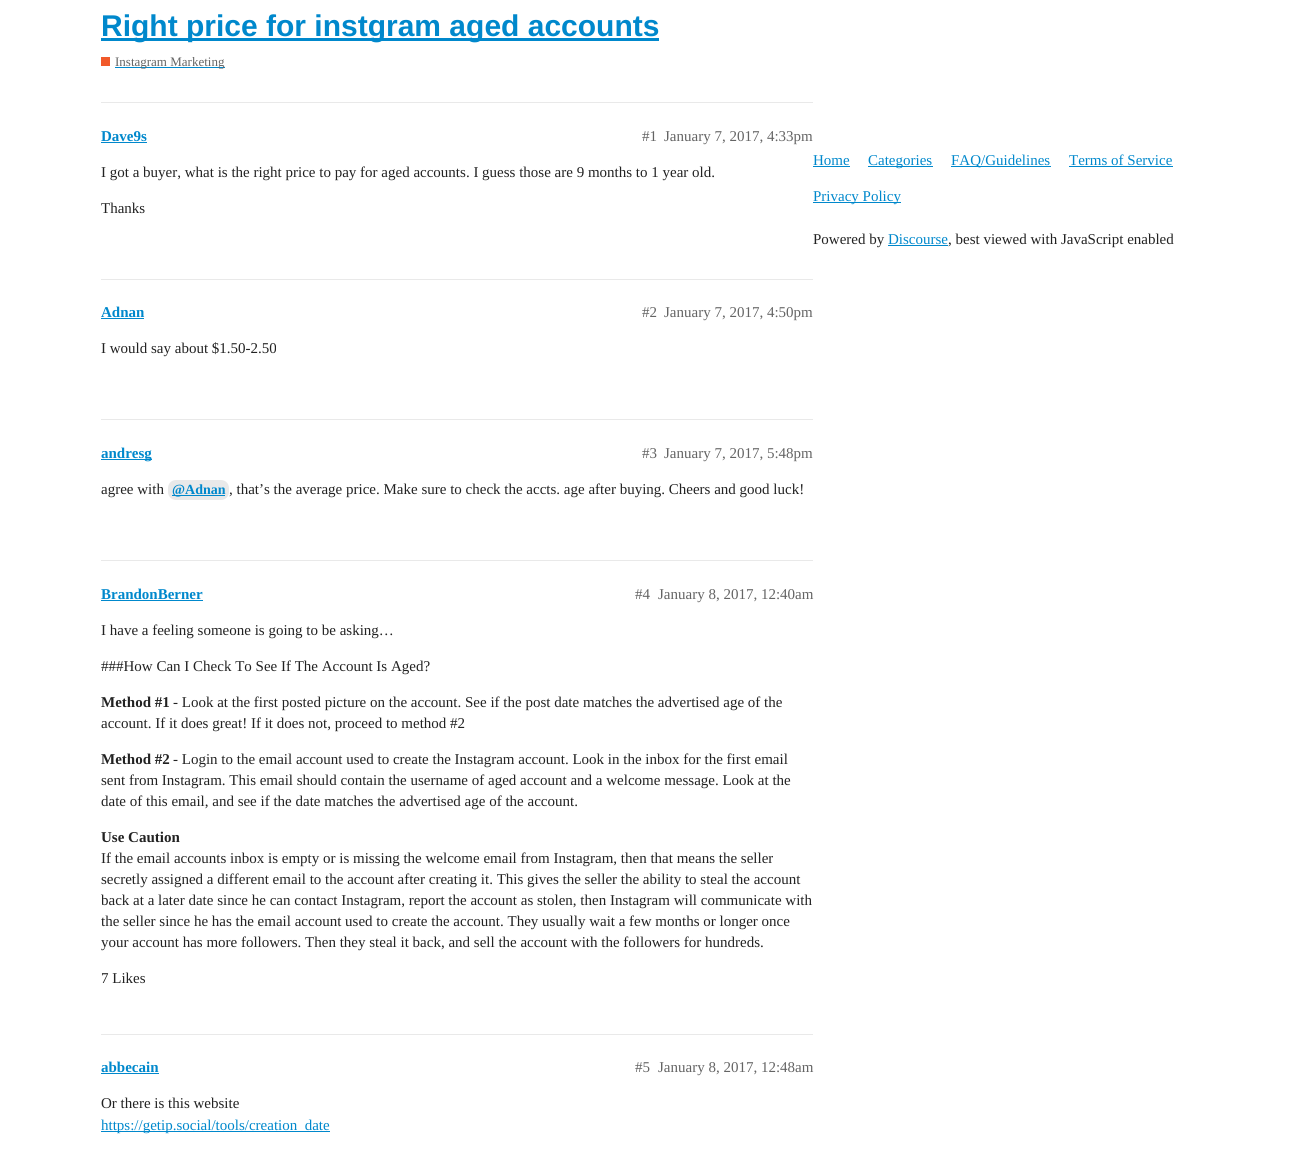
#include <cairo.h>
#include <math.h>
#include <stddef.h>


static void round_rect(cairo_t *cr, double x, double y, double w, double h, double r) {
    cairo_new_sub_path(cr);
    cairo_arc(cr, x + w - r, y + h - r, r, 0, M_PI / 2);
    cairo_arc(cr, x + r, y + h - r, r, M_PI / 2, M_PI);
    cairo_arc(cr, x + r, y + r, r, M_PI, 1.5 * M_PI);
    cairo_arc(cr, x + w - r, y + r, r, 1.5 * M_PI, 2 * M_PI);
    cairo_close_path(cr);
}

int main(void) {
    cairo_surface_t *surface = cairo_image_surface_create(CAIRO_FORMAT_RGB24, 1312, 1153);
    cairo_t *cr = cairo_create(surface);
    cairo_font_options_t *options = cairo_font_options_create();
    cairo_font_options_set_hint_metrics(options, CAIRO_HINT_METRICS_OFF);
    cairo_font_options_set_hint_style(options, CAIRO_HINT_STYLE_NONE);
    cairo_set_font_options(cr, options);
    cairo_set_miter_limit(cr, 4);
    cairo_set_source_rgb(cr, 1, 1, 1);
    cairo_paint(cr);
    cairo_set_source_rgb(cr, 0, 0.533, 0.8);
    cairo_rectangle(cr, 101, 38, 558, 3);
    cairo_fill(cr);
    cairo_select_font_face(cr, "Liberation Sans", CAIRO_FONT_SLANT_NORMAL, CAIRO_FONT_WEIGHT_BOLD);
    cairo_set_font_size(cr, 30);
    cairo_move_to(cr, 101, 36);
    cairo_show_text(cr, "Right price for instgram aged accounts");
    cairo_set_source_rgb(cr, 0.945, 0.349, 0.165);
    cairo_rectangle(cr, 101, 57, 9, 9);
    cairo_fill(cr);
    cairo_set_source_rgb(cr, 0, 0.533, 0.8);
    cairo_rectangle(cr, 115, 67, 110, 1);
    cairo_fill(cr);
    cairo_select_font_face(cr, "Liberation Serif", CAIRO_FONT_SLANT_NORMAL, CAIRO_FONT_WEIGHT_NORMAL);
    cairo_set_font_size(cr, 13);
    cairo_set_source_rgb(cr, 0.392, 0.392, 0.392);
    cairo_move_to(cr, 115, 66);
    cairo_show_text(cr, "Instagram Marketing");
    cairo_set_source_rgb(cr, 0.914, 0.914, 0.914);
    cairo_rectangle(cr, 101, 102, 712, 1);
    cairo_fill(cr);
    cairo_select_font_face(cr, "Liberation Serif", CAIRO_FONT_SLANT_NORMAL, CAIRO_FONT_WEIGHT_BOLD);
    cairo_set_font_size(cr, 15);
    cairo_set_source_rgb(cr, 0, 0.533, 0.8);
    cairo_move_to(cr, 101, 141);
    cairo_show_text(cr, "Dave9s");
    cairo_rectangle(cr, 101, 142, 46, 1);
    cairo_fill(cr);
    cairo_select_font_face(cr, "Liberation Serif", CAIRO_FONT_SLANT_NORMAL, CAIRO_FONT_WEIGHT_NORMAL);
    cairo_set_source_rgb(cr, 0.392, 0.392, 0.392);
    cairo_move_to(cr, 642, 141);
    cairo_show_text(cr, "#1");
    cairo_move_to(cr, 664, 141);
    cairo_show_text(cr, "January 7, 2017, 4:33pm");
    cairo_set_source_rgb(cr, 0.133, 0.133, 0.133);
    cairo_move_to(cr, 101, 177);
    cairo_show_text(cr, "I got a buyer, what is the right price to pay for aged accounts. I guess those are 9 months to 1 year old.");
    cairo_move_to(cr, 101, 213);
    cairo_show_text(cr, "Thanks");
    cairo_set_source_rgb(cr, 0.914, 0.914, 0.914);
    cairo_rectangle(cr, 101, 279, 712, 1);
    cairo_fill(cr);
    cairo_select_font_face(cr, "Liberation Serif", CAIRO_FONT_SLANT_NORMAL, CAIRO_FONT_WEIGHT_BOLD);
    cairo_set_source_rgb(cr, 0, 0.533, 0.8);
    cairo_move_to(cr, 101, 317);
    cairo_show_text(cr, "Adnan");
    cairo_rectangle(cr, 101, 318, 43, 1);
    cairo_fill(cr);
    cairo_select_font_face(cr, "Liberation Serif", CAIRO_FONT_SLANT_NORMAL, CAIRO_FONT_WEIGHT_NORMAL);
    cairo_set_source_rgb(cr, 0.392, 0.392, 0.392);
    cairo_move_to(cr, 642, 317);
    cairo_show_text(cr, "#2");
    cairo_move_to(cr, 664, 317);
    cairo_show_text(cr, "January 7, 2017, 4:50pm");
    cairo_set_source_rgb(cr, 0.133, 0.133, 0.133);
    cairo_move_to(cr, 101, 353);
    cairo_show_text(cr, "I would say about $1.50-2.50");
    cairo_set_source_rgb(cr, 0.914, 0.914, 0.914);
    cairo_rectangle(cr, 101, 419, 712, 1);
    cairo_fill(cr);
    cairo_set_source_rgb(cr, 0, 0.533, 0.8);
    cairo_rectangle(cr, 101, 459, 51, 1);
    cairo_fill(cr);
    cairo_select_font_face(cr, "Liberation Serif", CAIRO_FONT_SLANT_NORMAL, CAIRO_FONT_WEIGHT_BOLD);
    cairo_move_to(cr, 101, 458);
    cairo_show_text(cr, "andresg");
    cairo_select_font_face(cr, "Liberation Serif", CAIRO_FONT_SLANT_NORMAL, CAIRO_FONT_WEIGHT_NORMAL);
    cairo_set_source_rgb(cr, 0.392, 0.392, 0.392);
    cairo_move_to(cr, 642, 458);
    cairo_show_text(cr, "#3");
    cairo_move_to(cr, 664, 458);
    cairo_show_text(cr, "January 7, 2017, 5:48pm");
    cairo_set_source_rgb(cr, 0.133, 0.133, 0.133);
    cairo_move_to(cr, 101, 494);
    cairo_show_text(cr, "agree with");
    cairo_set_source_rgb(cr, 0.914, 0.914, 0.914);
    round_rect(cr, 168, 480, 61, 20, 8);
    cairo_fill(cr);
    cairo_set_source_rgb(cr, 0, 0.533, 0.8);
    cairo_rectangle(cr, 172, 495, 53, 1);
    cairo_fill(cr);
    cairo_select_font_face(cr, "Liberation Serif", CAIRO_FONT_SLANT_NORMAL, CAIRO_FONT_WEIGHT_BOLD);
    cairo_set_font_size(cr, 14);
    cairo_move_to(cr, 172, 494);
    cairo_show_text(cr, "@Adnan");
    cairo_select_font_face(cr, "Liberation Serif", CAIRO_FONT_SLANT_NORMAL, CAIRO_FONT_WEIGHT_NORMAL);
    cairo_set_font_size(cr, 15);
    cairo_set_source_rgb(cr, 0.133, 0.133, 0.133);
    cairo_move_to(cr, 229, 494);
    cairo_show_text(cr, ", that’s the average price. Make sure to check the accts. age after buying. Cheers and good luck!");
    cairo_set_source_rgb(cr, 0.914, 0.914, 0.914);
    cairo_rectangle(cr, 101, 560, 712, 1);
    cairo_fill(cr);
    cairo_select_font_face(cr, "Liberation Serif", CAIRO_FONT_SLANT_NORMAL, CAIRO_FONT_WEIGHT_BOLD);
    cairo_set_source_rgb(cr, 0, 0.533, 0.8);
    cairo_move_to(cr, 101, 599);
    cairo_show_text(cr, "BrandonBerner");
    cairo_rectangle(cr, 101, 600, 102, 1);
    cairo_fill(cr);
    cairo_select_font_face(cr, "Liberation Serif", CAIRO_FONT_SLANT_NORMAL, CAIRO_FONT_WEIGHT_NORMAL);
    cairo_set_source_rgb(cr, 0.392, 0.392, 0.392);
    cairo_move_to(cr, 635, 599);
    cairo_show_text(cr, "#4");
    cairo_move_to(cr, 658, 599);
    cairo_show_text(cr, "January 8, 2017, 12:40am");
    cairo_set_source_rgb(cr, 0.133, 0.133, 0.133);
    cairo_move_to(cr, 101, 635);
    cairo_show_text(cr, "I have a feeling someone is going to be asking…");
    cairo_move_to(cr, 101, 671);
    cairo_show_text(cr, "###How Can I Check To See If The Account Is Aged?");
    cairo_select_font_face(cr, "Liberation Serif", CAIRO_FONT_SLANT_NORMAL, CAIRO_FONT_WEIGHT_BOLD);
    cairo_move_to(cr, 101, 707);
    cairo_show_text(cr, "Method #1");
    cairo_select_font_face(cr, "Liberation Serif", CAIRO_FONT_SLANT_NORMAL, CAIRO_FONT_WEIGHT_NORMAL);
    cairo_move_to(cr, 173, 707);
    cairo_show_text(cr, "- Look at the first posted picture on the account. See if the post date matches the advertised age of the");
    cairo_move_to(cr, 101, 728);
    cairo_show_text(cr, "account. If it does great! If it does not, proceed to method #2");
    cairo_select_font_face(cr, "Liberation Serif", CAIRO_FONT_SLANT_NORMAL, CAIRO_FONT_WEIGHT_BOLD);
    cairo_move_to(cr, 101, 764);
    cairo_show_text(cr, "Method #2");
    cairo_select_font_face(cr, "Liberation Serif", CAIRO_FONT_SLANT_NORMAL, CAIRO_FONT_WEIGHT_NORMAL);
    cairo_move_to(cr, 173, 764);
    cairo_show_text(cr, "- Login to the email account used to create the Instagram account. Look in the inbox for the first email");
    cairo_move_to(cr, 101, 785);
    cairo_show_text(cr, "sent from Instagram. This email should contain the username of aged account and a welcome message. Look at the");
    cairo_move_to(cr, 101, 806);
    cairo_show_text(cr, "date of this email, and see if the date matches the advertised age of the account.");
    cairo_select_font_face(cr, "Liberation Serif", CAIRO_FONT_SLANT_NORMAL, CAIRO_FONT_WEIGHT_BOLD);
    cairo_move_to(cr, 101, 842);
    cairo_show_text(cr, "Use Caution");
    cairo_select_font_face(cr, "Liberation Serif", CAIRO_FONT_SLANT_NORMAL, CAIRO_FONT_WEIGHT_NORMAL);
    cairo_move_to(cr, 101, 863);
    cairo_show_text(cr, "If the email accounts inbox is empty or is missing the welcome email from Instagram, then that means the seller");
    cairo_move_to(cr, 101, 884);
    cairo_show_text(cr, "secretly assigned a different email to the account after creating it. This gives the seller the ability to steal the account");
    cairo_move_to(cr, 101, 905);
    cairo_show_text(cr, "back at a later date since he can contact Instagram, report the account as stolen, then Instagram will communicate with");
    cairo_move_to(cr, 101, 926);
    cairo_show_text(cr, "the seller since he has the email account used to create the account. They usually wait a few months or longer once");
    cairo_move_to(cr, 101, 947);
    cairo_show_text(cr, "your account has more followers. Then they steal it back, and sell the account with the followers for hundreds.");
    cairo_move_to(cr, 101, 983);
    cairo_show_text(cr, "7 Likes");
    cairo_set_source_rgb(cr, 0.914, 0.914, 0.914);
    cairo_rectangle(cr, 101, 1034, 712, 1);
    cairo_fill(cr);
    cairo_select_font_face(cr, "Liberation Serif", CAIRO_FONT_SLANT_NORMAL, CAIRO_FONT_WEIGHT_BOLD);
    cairo_set_source_rgb(cr, 0, 0.533, 0.8);
    cairo_move_to(cr, 101, 1072);
    cairo_show_text(cr, "abbecain");
    cairo_rectangle(cr, 101, 1073, 58, 1);
    cairo_fill(cr);
    cairo_select_font_face(cr, "Liberation Serif", CAIRO_FONT_SLANT_NORMAL, CAIRO_FONT_WEIGHT_NORMAL);
    cairo_set_source_rgb(cr, 0.392, 0.392, 0.392);
    cairo_move_to(cr, 635, 1072);
    cairo_show_text(cr, "#5");
    cairo_move_to(cr, 658, 1072);
    cairo_show_text(cr, "January 8, 2017, 12:48am");
    cairo_set_source_rgb(cr, 0.133, 0.133, 0.133);
    cairo_move_to(cr, 101, 1108);
    cairo_show_text(cr, "Or there is this website");
    cairo_set_source_rgb(cr, 0, 0.533, 0.8);
    cairo_rectangle(cr, 101, 1131, 229, 1);
    cairo_fill(cr);
    cairo_move_to(cr, 101, 1130);
    cairo_show_text(cr, "https://getip.social/tools/creation_date");
    cairo_move_to(cr, 813, 165);
    cairo_show_text(cr, "Home");
    cairo_rectangle(cr, 813, 166, 37, 1);
    cairo_fill(cr);
    cairo_rectangle(cr, 868, 166, 65, 1);
    cairo_fill(cr);
    cairo_move_to(cr, 868, 165);
    cairo_show_text(cr, "Categories");
    cairo_rectangle(cr, 951, 166, 100, 1);
    cairo_fill(cr);
    cairo_move_to(cr, 951, 165);
    cairo_show_text(cr, "FAQ/Guidelines");
    cairo_move_to(cr, 1069, 165);
    cairo_show_text(cr, "Terms of Service");
    cairo_rectangle(cr, 1069, 166, 104, 1);
    cairo_fill(cr);
    cairo_rectangle(cr, 813, 202, 88, 1);
    cairo_fill(cr);
    cairo_move_to(cr, 813, 201);
    cairo_show_text(cr, "Privacy Policy");
    cairo_set_source_rgb(cr, 0.133, 0.133, 0.133);
    cairo_move_to(cr, 813, 244);
    cairo_show_text(cr, "Powered by");
    cairo_set_source_rgb(cr, 0, 0.533, 0.8);
    cairo_move_to(cr, 888, 244);
    cairo_show_text(cr, "Discourse");
    cairo_rectangle(cr, 888, 245, 60, 1);
    cairo_fill(cr);
    cairo_set_source_rgb(cr, 0.133, 0.133, 0.133);
    cairo_move_to(cr, 948, 244);
    cairo_show_text(cr, ", best viewed with JavaScript enabled");
    cairo_surface_write_to_png(surface, "page.png");
    cairo_font_options_destroy(options);
    cairo_destroy(cr);
    cairo_surface_destroy(surface);
    return 0;
}
